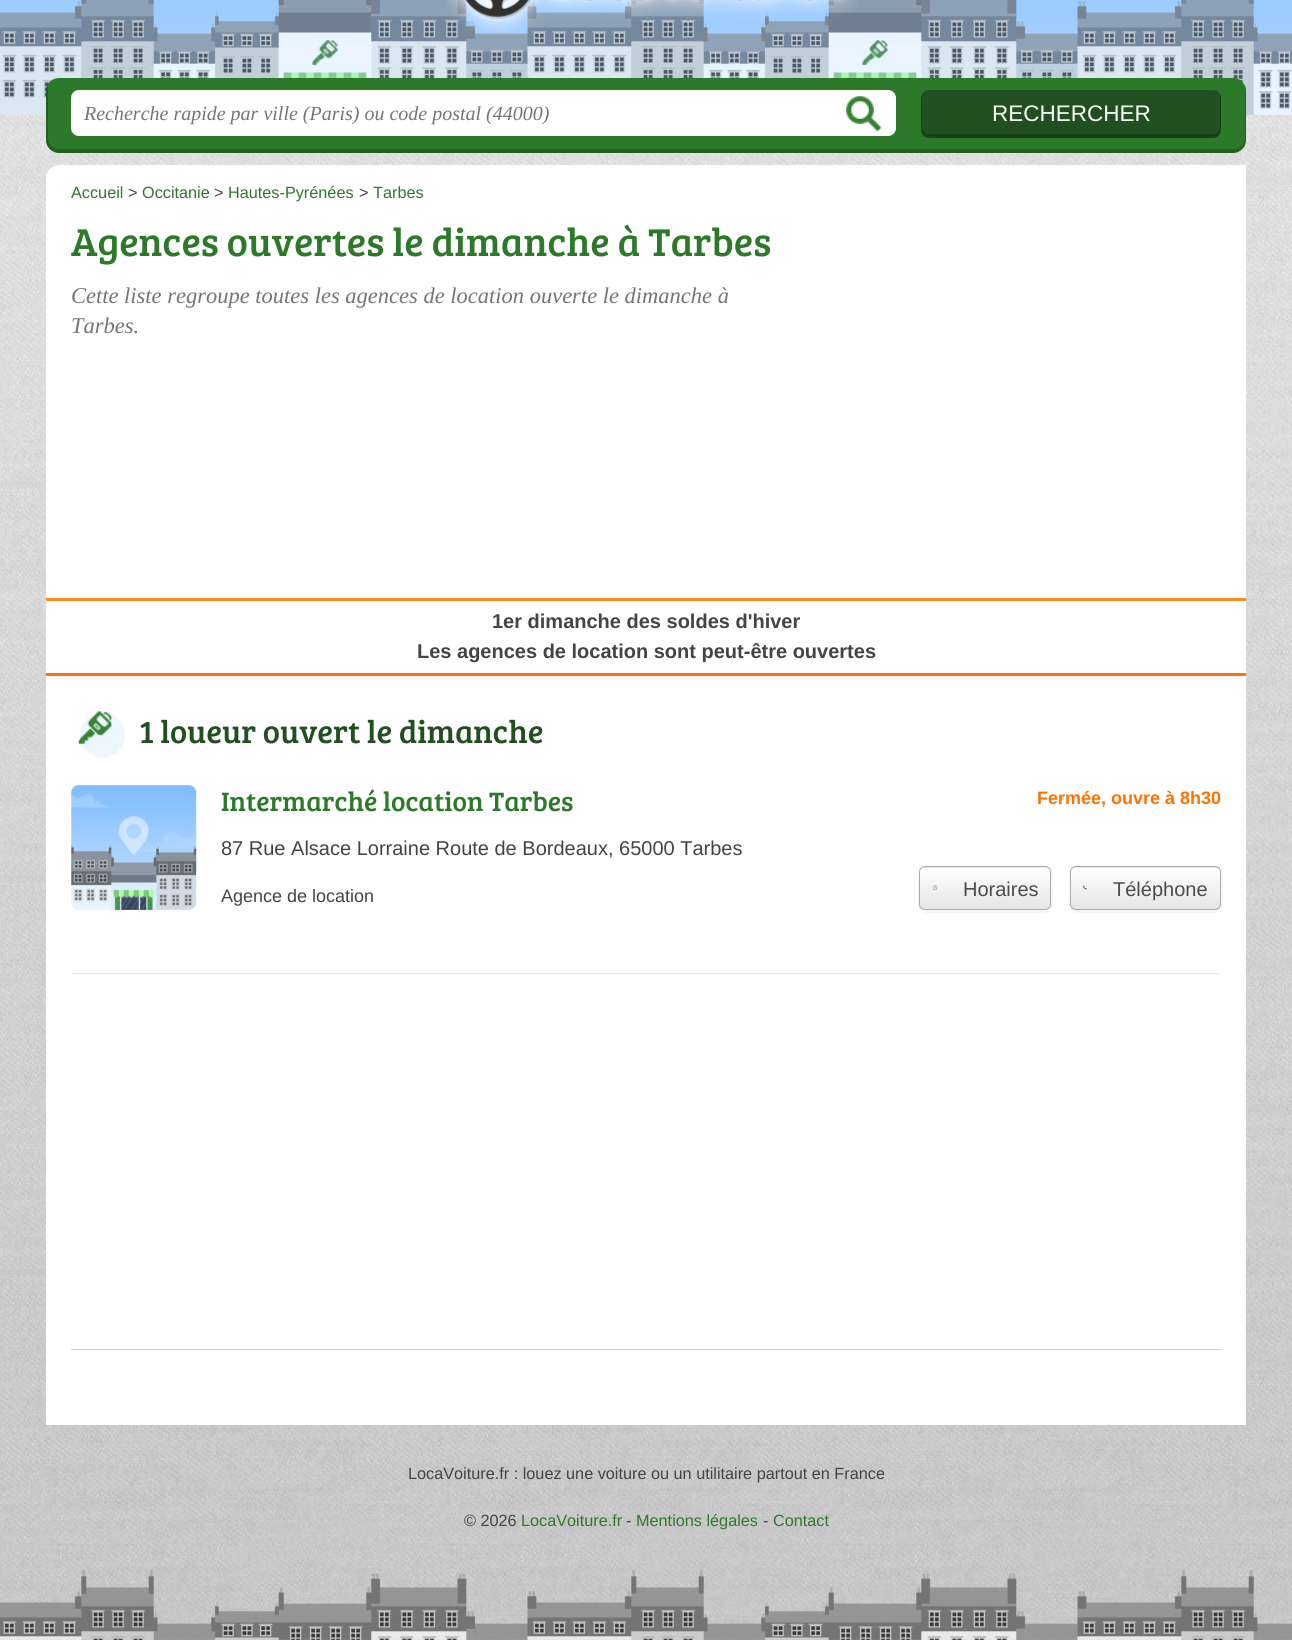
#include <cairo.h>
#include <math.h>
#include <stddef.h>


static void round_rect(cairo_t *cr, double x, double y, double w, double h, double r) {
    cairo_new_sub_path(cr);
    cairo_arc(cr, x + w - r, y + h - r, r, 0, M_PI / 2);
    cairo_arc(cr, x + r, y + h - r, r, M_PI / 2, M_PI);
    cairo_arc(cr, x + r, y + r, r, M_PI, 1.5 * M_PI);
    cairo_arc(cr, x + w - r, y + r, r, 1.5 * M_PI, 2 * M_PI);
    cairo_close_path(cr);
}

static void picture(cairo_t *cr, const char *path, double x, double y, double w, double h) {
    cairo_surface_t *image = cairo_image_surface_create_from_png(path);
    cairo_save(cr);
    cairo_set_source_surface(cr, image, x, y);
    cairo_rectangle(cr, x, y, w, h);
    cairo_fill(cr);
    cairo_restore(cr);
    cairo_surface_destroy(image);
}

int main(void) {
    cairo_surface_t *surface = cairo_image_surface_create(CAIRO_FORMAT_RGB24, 1292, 1640);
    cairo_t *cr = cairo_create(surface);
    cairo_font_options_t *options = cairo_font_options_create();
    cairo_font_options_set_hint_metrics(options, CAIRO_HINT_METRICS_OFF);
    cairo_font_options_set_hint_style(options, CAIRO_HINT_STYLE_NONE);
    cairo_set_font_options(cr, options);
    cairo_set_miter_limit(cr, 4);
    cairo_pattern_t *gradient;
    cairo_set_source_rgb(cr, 1, 1, 1);
    cairo_paint(cr);
    picture(cr, "img1.png", 0, 1570, 1292, 70);
    picture(cr, "img2.png", 0, 114, 1292, 1456);
    picture(cr, "img3.png", 0, 0, 1292, 115);
    picture(cr, "img4.png", 445, 0, 413, 35);
    cairo_set_source_rgb(cr, 0.173, 0.475, 0.161);
    round_rect(cr, 46, 78, 1200, 75, 13);
    cairo_fill(cr);
    cairo_set_source_rgba(cr, 0, 0, 0, 0.2);
    cairo_new_path(cr);
    cairo_move_to(cr, 49, 83);
    cairo_curve_to(cr, 47, 85, 46, 88, 46, 91);
    cairo_line_to(cr, 46, 140);
    cairo_curve_to(cr, 46, 147, 52, 153, 59, 153);
    cairo_line_to(cr, 1233, 153);
    cairo_curve_to(cr, 1240, 153, 1246, 147, 1246, 140);
    cairo_line_to(cr, 1246, 91);
    cairo_curve_to(cr, 1246, 89, 1246, 87, 1245, 85);
    cairo_line_to(cr, 1245, 138);
    cairo_curve_to(cr, 1245, 144, 1240, 149, 1234, 149);
    cairo_line_to(cr, 59, 149);
    cairo_curve_to(cr, 53, 149, 48, 144, 48, 138);
    cairo_line_to(cr, 48, 88);
    cairo_curve_to(cr, 48, 86, 48, 84, 49, 83);
    cairo_close_path(cr);
    cairo_fill(cr);
    cairo_set_source_rgb(cr, 1, 1, 1);
    round_rect(cr, 71, 90, 825, 46, 8);
    cairo_fill(cr);
    picture(cr, "img5.png", 846, 96, 36, 36);
    cairo_select_font_face(cr, "Liberation Serif", CAIRO_FONT_SLANT_ITALIC, CAIRO_FONT_WEIGHT_NORMAL);
    cairo_set_font_size(cr, 20);
    cairo_set_source_rgb(cr, 0.459, 0.459, 0.459);
    cairo_move_to(cr, 84, 120);
    cairo_show_text(cr, "Recherche rapide par ville (Paris) ou code postal (44000)");
    cairo_set_source_rgb(cr, 0.129, 0.31, 0.125);
    round_rect(cr, 921, 90, 300, 48, 8);
    cairo_fill(cr);
    cairo_set_source_rgba(cr, 0, 0, 0, 0.2);
    cairo_new_path(cr);
    cairo_move_to(cr, 922, 94);
    cairo_curve_to(cr, 921, 95, 921, 96, 921, 98);
    cairo_line_to(cr, 921, 130);
    cairo_curve_to(cr, 921, 134, 925, 138, 929, 138);
    cairo_line_to(cr, 1213, 138);
    cairo_curve_to(cr, 1217, 138, 1221, 134, 1221, 130);
    cairo_line_to(cr, 1221, 98);
    cairo_curve_to(cr, 1221, 97, 1221, 95, 1220, 94);
    cairo_line_to(cr, 1220, 117);
    cairo_curve_to(cr, 1220, 122, 1222, 134, 1214, 134);
    cairo_line_to(cr, 929, 134);
    cairo_curve_to(cr, 920, 134, 922, 123, 922, 117);
    cairo_close_path(cr);
    cairo_fill(cr);
    cairo_select_font_face(cr, "Liberation Sans", CAIRO_FONT_SLANT_NORMAL, CAIRO_FONT_WEIGHT_NORMAL);
    cairo_set_font_size(cr, 22.5);
    cairo_set_source_rgb(cr, 1, 1, 1);
    cairo_move_to(cr, 992, 121);
    cairo_show_text(cr, "RECHERCHER");
    cairo_new_path(cr);
    cairo_move_to(cr, 59, 165);
    cairo_line_to(cr, 1233, 165);
    cairo_curve_to(cr, 1240, 165, 1246, 171, 1246, 178);
    cairo_line_to(cr, 1246, 1425);
    cairo_line_to(cr, 46, 1425);
    cairo_line_to(cr, 46, 178);
    cairo_curve_to(cr, 46, 171, 52, 165, 59, 165);
    cairo_close_path(cr);
    cairo_fill(cr);
    cairo_set_font_size(cr, 16.25);
    cairo_set_source_rgb(cr, 0.173, 0.475, 0.161);
    cairo_move_to(cr, 71, 198);
    cairo_show_text(cr, "Accueil");
    cairo_set_source_rgb(cr, 0.267, 0.267, 0.267);
    cairo_move_to(cr, 128, 198);
    cairo_show_text(cr, ">");
    cairo_set_source_rgb(cr, 0.173, 0.475, 0.161);
    cairo_move_to(cr, 142, 198);
    cairo_show_text(cr, "Occitanie");
    cairo_set_source_rgb(cr, 0.267, 0.267, 0.267);
    cairo_move_to(cr, 214, 198);
    cairo_show_text(cr, ">");
    cairo_set_source_rgb(cr, 0.173, 0.475, 0.161);
    cairo_move_to(cr, 228, 198);
    cairo_show_text(cr, "Hautes-Pyrénées");
    cairo_set_source_rgb(cr, 0.267, 0.267, 0.267);
    cairo_move_to(cr, 359, 198);
    cairo_show_text(cr, ">");
    cairo_set_source_rgb(cr, 0.173, 0.475, 0.161);
    cairo_move_to(cr, 373, 198);
    cairo_show_text(cr, "Tarbes");
    cairo_set_source_rgb(cr, 1, 1, 1);
    cairo_rectangle(cr, 1234, 165, 12, 12);
    cairo_fill(cr);
    cairo_select_font_face(cr, "Bree Serif", CAIRO_FONT_SLANT_NORMAL, CAIRO_FONT_WEIGHT_NORMAL);
    cairo_set_font_size(cr, 40);
    cairo_set_source_rgb(cr, 0.173, 0.475, 0.161);
    cairo_move_to(cr, 71, 256);
    cairo_show_text(cr, "Agences ouvertes le dimanche à Tarbes");
    cairo_select_font_face(cr, "Liberation Serif", CAIRO_FONT_SLANT_ITALIC, CAIRO_FONT_WEIGHT_NORMAL);
    cairo_set_font_size(cr, 22.5);
    cairo_set_source_rgb(cr, 0.459, 0.459, 0.459);
    cairo_move_to(cr, 71, 303);
    cairo_show_text(cr, "Cette liste regroupe toutes les agences de location ouverte le dimanche à");
    cairo_move_to(cr, 71, 333);
    cairo_show_text(cr, "Tarbes.");
    cairo_set_source_rgb(cr, 1, 0.553, 0.122);
    cairo_rectangle(cr, 46, 598, 1200, 3);
    cairo_fill(cr);
    cairo_set_source_rgb(cr, 1, 0.443, 0.039);
    cairo_rectangle(cr, 46, 673, 1200, 3);
    cairo_fill(cr);
    cairo_select_font_face(cr, "Liberation Sans", CAIRO_FONT_SLANT_NORMAL, CAIRO_FONT_WEIGHT_BOLD);
    cairo_set_font_size(cr, 20);
    cairo_set_source_rgb(cr, 0.267, 0.267, 0.267);
    cairo_move_to(cr, 492, 628);
    cairo_show_text(cr, "1er dimanche des soldes d'hiver");
    cairo_move_to(cr, 417, 658);
    cairo_show_text(cr, "Les agences de location sont peut-être ouvertes");
    cairo_set_source_rgb(cr, 0.918, 0.914, 0.875);
    cairo_rectangle(cr, 71, 973, 1150, 1);
    cairo_fill(cr);
    picture(cr, "img6.png", 78, 711, 47, 47);
    cairo_select_font_face(cr, "Bree Serif", CAIRO_FONT_SLANT_NORMAL, CAIRO_FONT_WEIGHT_NORMAL);
    cairo_set_font_size(cr, 32.5);
    cairo_set_source_rgb(cr, 0.129, 0.31, 0.125);
    cairo_move_to(cr, 139, 743);
    cairo_show_text(cr, "1 loueur ouvert le dimanche");
    picture(cr, "img7.png", 71, 785, 126, 125);
    cairo_set_font_size(cr, 27.5);
    cairo_set_source_rgb(cr, 0.173, 0.475, 0.161);
    cairo_move_to(cr, 221, 811);
    cairo_show_text(cr, "Intermarché location Tarbes");
    cairo_select_font_face(cr, "Liberation Sans", CAIRO_FONT_SLANT_NORMAL, CAIRO_FONT_WEIGHT_BOLD);
    cairo_set_font_size(cr, 18);
    cairo_set_source_rgb(cr, 1, 0.447, 0);
    cairo_move_to(cr, 1037, 804);
    cairo_show_text(cr, "Fermée, ouvre à 8h30");
    cairo_select_font_face(cr, "Liberation Sans", CAIRO_FONT_SLANT_NORMAL, CAIRO_FONT_WEIGHT_NORMAL);
    cairo_set_font_size(cr, 20);
    cairo_set_source_rgb(cr, 0.267, 0.267, 0.267);
    cairo_move_to(cr, 221, 855);
    cairo_show_text(cr, "87 Rue Alsace Lorraine Route de Bordeaux, 65000 Tarbes");
    cairo_set_font_size(cr, 18);
    cairo_move_to(cr, 221, 902);
    cairo_show_text(cr, "Agence de location");
    cairo_set_source_rgb(cr, 0.961, 0.961, 0.961);
    cairo_new_path(cr);
    cairo_move_to(cr, 926, 866);
    cairo_line_to(cr, 924, 866);
    cairo_line_to(cr, 1045, 866);
    cairo_curve_to(cr, 1049, 866, 1051, 869, 1051, 872);
    cairo_line_to(cr, 1051, 904);
    cairo_curve_to(cr, 1051, 907, 1049, 910, 1045, 910);
    cairo_line_to(cr, 925, 910);
    cairo_curve_to(cr, 921, 910, 919, 907, 919, 904);
    cairo_line_to(cr, 919, 872);
    cairo_line_to(cr, 920, 869);
    cairo_curve_to(cr, 919, 871, 918, 872, 918, 874);
    cairo_line_to(cr, 918, 905);
    cairo_curve_to(cr, 918, 909, 922, 913, 926, 913);
    cairo_line_to(cr, 1045, 913);
    cairo_curve_to(cr, 1049, 913, 1053, 909, 1053, 905);
    cairo_line_to(cr, 1053, 874);
    cairo_curve_to(cr, 1053, 870, 1049, 866, 1045, 866);
    cairo_close_path(cr);
    cairo_fill(cr);
    cairo_save(cr);
    round_rect(cr, 919, 866, 132, 44, 6);
    cairo_clip(cr);
    gradient = cairo_pattern_create_linear(985, 826, 985, 868);
    cairo_pattern_add_color_stop_rgba(gradient, 0, 1, 1, 1, 1);
    cairo_pattern_add_color_stop_rgba(gradient, 1, 0.898, 0.898, 0.898, 1);
    cairo_set_source(cr, gradient);
    cairo_pattern_destroy(gradient);
    cairo_rectangle(cr, 919, 866, 132, 2);
    cairo_fill(cr);
    gradient = cairo_pattern_create_linear(985, 868, 985, 909);
    cairo_pattern_add_color_stop_rgba(gradient, 0, 1, 1, 1, 1);
    cairo_pattern_add_color_stop_rgba(gradient, 1, 0.898, 0.898, 0.898, 1);
    cairo_set_source(cr, gradient);
    cairo_pattern_destroy(gradient);
    cairo_rectangle(cr, 919, 868, 132, 41);
    cairo_fill(cr);
    cairo_restore(cr);
    round_rect(cr, 919.5, 866.5, 131, 43, 5.5);
    cairo_set_source_rgb(cr, 0.667, 0.667, 0.667);
    cairo_set_line_width(cr, 1);
    cairo_stroke(cr);
    picture(cr, "img8.png", 932, 885, 6, 5);
    cairo_set_font_size(cr, 20);
    cairo_set_source_rgb(cr, 0.294, 0.294, 0.294);
    cairo_move_to(cr, 963, 896);
    cairo_show_text(cr, "Horaires");
    cairo_set_source_rgb(cr, 0.961, 0.961, 0.961);
    cairo_new_path(cr);
    cairo_move_to(cr, 1077, 866);
    cairo_line_to(cr, 1074, 867);
    cairo_line_to(cr, 1076, 866);
    cairo_line_to(cr, 1215, 866);
    cairo_curve_to(cr, 1219, 866, 1221, 869, 1221, 872);
    cairo_line_to(cr, 1221, 904);
    cairo_curve_to(cr, 1221, 907, 1219, 910, 1215, 910);
    cairo_line_to(cr, 1076, 910);
    cairo_curve_to(cr, 1073, 910, 1070, 907, 1070, 904);
    cairo_line_to(cr, 1070, 872);
    cairo_curve_to(cr, 1070, 870, 1071, 869, 1072, 868);
    cairo_curve_to(cr, 1070, 869, 1069, 871, 1069, 874);
    cairo_line_to(cr, 1069, 905);
    cairo_curve_to(cr, 1069, 909, 1073, 913, 1077, 913);
    cairo_line_to(cr, 1215, 913);
    cairo_curve_to(cr, 1219, 913, 1223, 909, 1223, 905);
    cairo_line_to(cr, 1223, 874);
    cairo_curve_to(cr, 1223, 870, 1219, 866, 1215, 866);
    cairo_close_path(cr);
    cairo_fill(cr);
    cairo_save(cr);
    round_rect(cr, 1070, 866, 151, 44, 6);
    cairo_clip(cr);
    gradient = cairo_pattern_create_linear(1146, 826, 1146, 868);
    cairo_pattern_add_color_stop_rgba(gradient, 0, 1, 1, 1, 1);
    cairo_pattern_add_color_stop_rgba(gradient, 1, 0.898, 0.898, 0.898, 1);
    cairo_set_source(cr, gradient);
    cairo_pattern_destroy(gradient);
    cairo_rectangle(cr, 1070, 866, 151, 2);
    cairo_fill(cr);
    gradient = cairo_pattern_create_linear(1146, 868, 1146, 909);
    cairo_pattern_add_color_stop_rgba(gradient, 0, 1, 1, 1, 1);
    cairo_pattern_add_color_stop_rgba(gradient, 1, 0.898, 0.898, 0.898, 1);
    cairo_set_source(cr, gradient);
    cairo_pattern_destroy(gradient);
    cairo_rectangle(cr, 1070, 868, 151, 41);
    cairo_fill(cr);
    cairo_restore(cr);
    round_rect(cr, 1070.5, 866.5, 150, 43, 5.5);
    cairo_set_source_rgb(cr, 0.667, 0.667, 0.667);
    cairo_stroke(cr);
    picture(cr, "img9.png", 1083, 885, 4, 5);
    cairo_set_source_rgb(cr, 0.294, 0.294, 0.294);
    cairo_move_to(cr, 1113, 896);
    cairo_show_text(cr, "Téléphone");
    cairo_set_source_rgb(cr, 0.82, 0.82, 0.82);
    cairo_rectangle(cr, 71, 1349, 1150, 1);
    cairo_fill(cr);
    cairo_set_font_size(cr, 16.25);
    cairo_set_source_rgb(cr, 0.267, 0.267, 0.267);
    cairo_move_to(cr, 408, 1479);
    cairo_show_text(cr, "LocaVoiture.fr : louez une voiture ou un utilitaire partout en France");
    cairo_move_to(cr, 464, 1526);
    cairo_show_text(cr, "© 2026");
    cairo_set_source_rgb(cr, 0.173, 0.475, 0.161);
    cairo_move_to(cr, 521, 1526);
    cairo_show_text(cr, "LocaVoiture.fr");
    cairo_set_source_rgb(cr, 0.267, 0.267, 0.267);
    cairo_move_to(cr, 626, 1526);
    cairo_show_text(cr, "-");
    cairo_set_source_rgb(cr, 0.173, 0.475, 0.161);
    cairo_move_to(cr, 636, 1526);
    cairo_show_text(cr, "Mentions légales");
    cairo_set_source_rgb(cr, 0.267, 0.267, 0.267);
    cairo_move_to(cr, 763, 1526);
    cairo_show_text(cr, "-");
    cairo_set_source_rgb(cr, 0.173, 0.475, 0.161);
    cairo_move_to(cr, 773, 1526);
    cairo_show_text(cr, "Contact");
    picture(cr, "img10.png", 0, 1570, 1292, 70);
    cairo_surface_write_to_png(surface, "page.png");
    cairo_font_options_destroy(options);
    cairo_destroy(cr);
    cairo_surface_destroy(surface);
    return 0;
}
